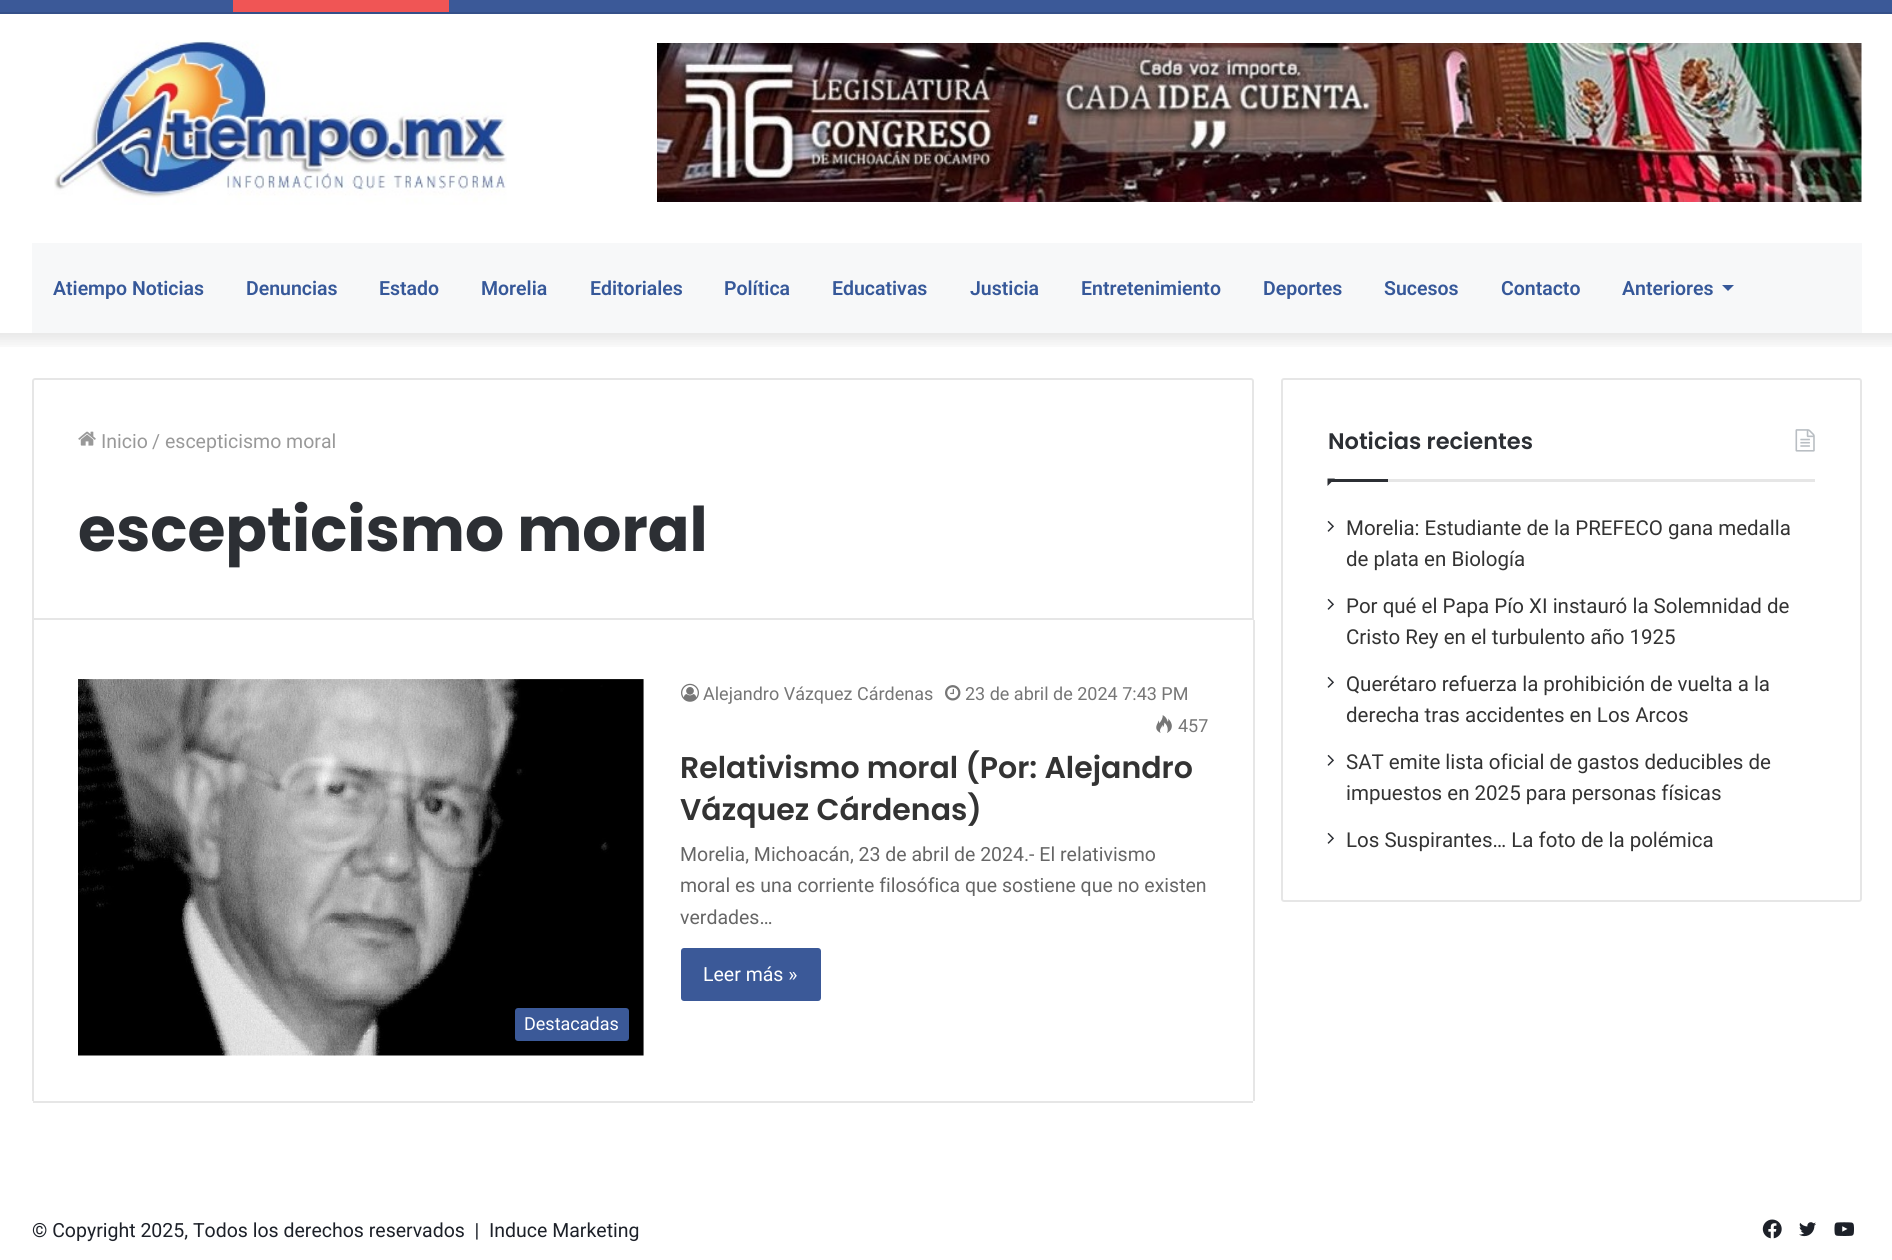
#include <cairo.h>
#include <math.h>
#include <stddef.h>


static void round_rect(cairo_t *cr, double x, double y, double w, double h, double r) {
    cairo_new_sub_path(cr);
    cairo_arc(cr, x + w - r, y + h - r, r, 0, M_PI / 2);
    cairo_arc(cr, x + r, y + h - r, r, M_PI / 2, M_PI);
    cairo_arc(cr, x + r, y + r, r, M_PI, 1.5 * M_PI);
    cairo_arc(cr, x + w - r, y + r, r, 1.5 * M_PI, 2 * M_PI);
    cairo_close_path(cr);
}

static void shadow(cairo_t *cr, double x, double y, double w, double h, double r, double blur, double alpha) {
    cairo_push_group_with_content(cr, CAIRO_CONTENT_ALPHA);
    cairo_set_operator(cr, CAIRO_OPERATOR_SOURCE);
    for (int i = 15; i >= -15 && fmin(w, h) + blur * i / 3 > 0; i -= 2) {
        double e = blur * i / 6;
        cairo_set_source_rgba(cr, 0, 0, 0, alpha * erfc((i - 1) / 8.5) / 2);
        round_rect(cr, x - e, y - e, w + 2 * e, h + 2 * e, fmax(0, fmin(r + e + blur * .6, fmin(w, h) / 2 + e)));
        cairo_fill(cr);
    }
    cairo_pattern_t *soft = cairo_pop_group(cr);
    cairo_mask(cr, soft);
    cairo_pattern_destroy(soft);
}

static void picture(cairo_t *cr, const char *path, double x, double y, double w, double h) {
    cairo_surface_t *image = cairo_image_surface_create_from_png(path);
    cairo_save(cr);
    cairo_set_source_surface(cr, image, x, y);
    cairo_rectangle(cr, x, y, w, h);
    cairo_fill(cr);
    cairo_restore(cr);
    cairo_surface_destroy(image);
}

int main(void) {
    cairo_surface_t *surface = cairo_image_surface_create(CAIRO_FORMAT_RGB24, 1892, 1260);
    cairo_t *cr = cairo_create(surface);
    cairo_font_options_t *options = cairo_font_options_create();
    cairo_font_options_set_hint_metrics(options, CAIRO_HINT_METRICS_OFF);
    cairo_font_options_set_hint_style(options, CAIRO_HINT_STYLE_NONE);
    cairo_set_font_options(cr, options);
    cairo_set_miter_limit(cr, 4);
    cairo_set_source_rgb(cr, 1, 1, 1);
    cairo_paint(cr);
    cairo_save(cr);
    cairo_rectangle(cr, 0, 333, 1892, 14);
    cairo_clip(cr);
    cairo_set_source_rgb(cr, 0, 0, 0);
    shadow(cr, -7, -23, 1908, 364, 0, 7.5, 0.1);
    cairo_restore(cr);
    cairo_set_source_rgb(cr, 0.231, 0.349, 0.596);
    cairo_rectangle(cr, 0, 0, 1892, 12);
    cairo_fill(cr);
    cairo_set_source_rgb(cr, 0.208, 0.314, 0.537);
    cairo_rectangle(cr, 0, 12, 1892, 2);
    cairo_fill(cr);
    cairo_set_source_rgb(cr, 0.941, 0.333, 0.333);
    cairo_rectangle(cr, 233, 0, 216, 12);
    cairo_fill(cr);
    picture(cr, "img1.png", 54, 40, 453, 165);
    picture(cr, "img2.png", 657, 43, 1205, 159);
    cairo_set_source_rgb(cr, 0.965, 0.969, 0.976);
    cairo_rectangle(cr, 32, 243, 1830, 90);
    cairo_fill(cr);
    cairo_select_font_face(cr, "Roboto SemiBold", CAIRO_FONT_SLANT_NORMAL, CAIRO_FONT_WEIGHT_NORMAL);
    cairo_set_font_size(cr, 19.5);
    cairo_set_source_rgb(cr, 0.212, 0.345, 0.6);
    cairo_move_to(cr, 53, 295);
    cairo_show_text(cr, "Atiempo Noticias");
    cairo_move_to(cr, 246, 295);
    cairo_show_text(cr, "Denuncias");
    cairo_move_to(cr, 379, 295);
    cairo_show_text(cr, "Estado");
    cairo_move_to(cr, 481, 295);
    cairo_show_text(cr, "Morelia");
    cairo_move_to(cr, 590, 295);
    cairo_show_text(cr, "Editoriales");
    cairo_move_to(cr, 724, 295);
    cairo_show_text(cr, "Política");
    cairo_move_to(cr, 832, 295);
    cairo_show_text(cr, "Educativas");
    cairo_move_to(cr, 970, 295);
    cairo_show_text(cr, "Justicia");
    cairo_move_to(cr, 1081, 295);
    cairo_show_text(cr, "Entretenimiento");
    cairo_move_to(cr, 1263, 295);
    cairo_show_text(cr, "Deportes");
    cairo_move_to(cr, 1384, 295);
    cairo_show_text(cr, "Sucesos");
    cairo_move_to(cr, 1501, 295);
    cairo_show_text(cr, "Contacto");
    cairo_move_to(cr, 1622, 295);
    cairo_show_text(cr, "Anteriores");
    cairo_new_path(cr);
    cairo_move_to(cr, 1722, 285);
    cairo_line_to(cr, 1734, 285);
    cairo_line_to(cr, 1728, 291);
    cairo_close_path(cr);
    cairo_fill(cr);
    cairo_new_path(cr);
    cairo_move_to(cr, 35, 379);
    cairo_line_to(cr, 1251, 379);
    cairo_curve_to(cr, 1252, 379, 1253, 380, 1253, 381);
    cairo_line_to(cr, 1253, 619);
    cairo_line_to(cr, 33, 619);
    cairo_line_to(cr, 33, 381);
    cairo_curve_to(cr, 33, 380, 34, 379, 35, 379);
    cairo_close_path(cr);
    cairo_set_source_rgb(cr, 0.902, 0.902, 0.902);
    cairo_stroke(cr);
    picture(cr, "img3.png", 78, 431, 18, 15);
    cairo_select_font_face(cr, "Roboto", CAIRO_FONT_SLANT_NORMAL, CAIRO_FONT_WEIGHT_NORMAL);
    cairo_set_source_rgb(cr, 0.6, 0.6, 0.6);
    cairo_move_to(cr, 101, 448);
    cairo_show_text(cr, "Inicio");
    cairo_move_to(cr, 152, 448);
    cairo_show_text(cr, "/");
    cairo_move_to(cr, 165, 448);
    cairo_show_text(cr, "escepticismo moral");
    cairo_select_font_face(cr, "Poppins", CAIRO_FONT_SLANT_NORMAL, CAIRO_FONT_WEIGHT_BOLD);
    cairo_set_font_size(cr, 61.5);
    cairo_set_source_rgb(cr, 0.173, 0.184, 0.204);
    cairo_move_to(cr, 78, 551);
    cairo_show_text(cr, "escepticismo moral");
    cairo_set_source_rgb(cr, 0.902, 0.902, 0.902);
    cairo_rectangle(cr, 1253, 620, 2, 481);
    cairo_fill(cr);
    cairo_rectangle(cr, 33, 1101, 1220, 2);
    cairo_fill(cr);
    cairo_rectangle(cr, 32, 620, 2, 481);
    cairo_fill(cr);
    picture(cr, "img4.png", 681, 683, 18, 19);
    cairo_select_font_face(cr, "Roboto", CAIRO_FONT_SLANT_NORMAL, CAIRO_FONT_WEIGHT_NORMAL);
    cairo_set_font_size(cr, 18);
    cairo_set_source_rgb(cr, 0.463, 0.463, 0.463);
    cairo_move_to(cr, 703, 700);
    cairo_show_text(cr, "Alejandro Vázquez Cárdenas");
    picture(cr, "img5.png", 945, 685, 16, 16);
    cairo_move_to(cr, 965, 700);
    cairo_show_text(cr, "23 de abril de 2024 7:43 PM");
    picture(cr, "img6.png", 1156, 715, 16, 18);
    cairo_move_to(cr, 1178, 732);
    cairo_show_text(cr, "457");
    cairo_select_font_face(cr, "Poppins SemiBold", CAIRO_FONT_SLANT_NORMAL, CAIRO_FONT_WEIGHT_NORMAL);
    cairo_set_font_size(cr, 30);
    cairo_set_source_rgb(cr, 0.2, 0.2, 0.2);
    cairo_move_to(cr, 680, 778);
    cairo_show_text(cr, "Relativismo moral (Por: Alejandro");
    cairo_move_to(cr, 680, 820);
    cairo_show_text(cr, "Vázquez Cárdenas)");
    cairo_select_font_face(cr, "Roboto", CAIRO_FONT_SLANT_NORMAL, CAIRO_FONT_WEIGHT_NORMAL);
    cairo_set_font_size(cr, 19.5);
    cairo_set_source_rgb(cr, 0.4, 0.4, 0.4);
    cairo_move_to(cr, 680, 861);
    cairo_show_text(cr, "Morelia, Michoacán, 23 de abril de 2024.- El relativismo");
    cairo_move_to(cr, 680, 892);
    cairo_show_text(cr, "moral es una corriente filosófica que sostiene que no existen");
    cairo_move_to(cr, 680, 924);
    cairo_show_text(cr, "verdades…");
    cairo_set_source_rgb(cr, 0.231, 0.349, 0.596);
    round_rect(cr, 681, 948, 140, 53, 3);
    cairo_fill(cr);
    cairo_set_source_rgb(cr, 1, 1, 1);
    cairo_move_to(cr, 703, 981);
    cairo_show_text(cr, "Leer más »");
    picture(cr, "img7.png", 78, 679, 566, 377);
    cairo_set_source_rgb(cr, 0.231, 0.349, 0.596);
    round_rect(cr, 515, 1008, 114, 33, 3);
    cairo_fill(cr);
    cairo_set_font_size(cr, 18);
    cairo_set_source_rgb(cr, 1, 1, 1);
    cairo_move_to(cr, 524, 1030);
    cairo_show_text(cr, "Destacadas");
    round_rect(cr, 1282, 379, 579, 522, 2);
    cairo_set_source_rgb(cr, 0.902, 0.902, 0.902);
    cairo_stroke(cr);
    cairo_rectangle(cr, 1388, 479, 427, 3);
    cairo_fill(cr);
    cairo_select_font_face(cr, "Poppins SemiBold", CAIRO_FONT_SLANT_NORMAL, CAIRO_FONT_WEIGHT_NORMAL);
    cairo_set_font_size(cr, 22.5);
    cairo_set_source_rgb(cr, 0.173, 0.184, 0.204);
    cairo_move_to(cr, 1328, 449);
    cairo_show_text(cr, "Noticias recientes");
    picture(cr, "img8.png", 1795, 429, 20, 23);
    cairo_new_path(cr);
    cairo_move_to(cr, 1327.5, 478.5);
    cairo_line_to(cr, 1335, 478.5);
    cairo_line_to(cr, 1327.5, 486);
    cairo_close_path(cr);
    cairo_fill(cr);
    cairo_rectangle(cr, 1328, 479, 60, 3);
    cairo_fill(cr);
    picture(cr, "img9.png", 1327, 520, 7, 12);
    cairo_select_font_face(cr, "Roboto", CAIRO_FONT_SLANT_NORMAL, CAIRO_FONT_WEIGHT_NORMAL);
    cairo_set_font_size(cr, 20.5);
    cairo_set_source_rgb(cr, 0.2, 0.2, 0.2);
    cairo_move_to(cr, 1346, 535);
    cairo_show_text(cr, "Morelia: Estudiante de la PREFECO gana medalla");
    cairo_move_to(cr, 1346, 566);
    cairo_show_text(cr, "de plata en Biología");
    picture(cr, "img9.png", 1327, 598, 7, 12);
    cairo_move_to(cr, 1346, 613);
    cairo_show_text(cr, "Por qué el Papa Pío XI instauró la Solemnidad de");
    cairo_move_to(cr, 1346, 644);
    cairo_show_text(cr, "Cristo Rey en el turbulento año 1925");
    picture(cr, "img9.png", 1327, 676, 7, 12);
    cairo_move_to(cr, 1346, 691);
    cairo_show_text(cr, "Querétaro refuerza la prohibición de vuelta a la");
    cairo_move_to(cr, 1346, 722);
    cairo_show_text(cr, "derecha tras accidentes en Los Arcos");
    picture(cr, "img9.png", 1327, 754, 7, 12);
    cairo_move_to(cr, 1346, 769);
    cairo_show_text(cr, "SAT emite lista oficial de gastos deducibles de");
    cairo_move_to(cr, 1346, 800);
    cairo_show_text(cr, "impuestos en 2025 para personas físicas");
    picture(cr, "img9.png", 1327, 832, 7, 12);
    cairo_move_to(cr, 1346, 847);
    cairo_show_text(cr, "Los Suspirantes… La foto de la polémica");
    cairo_set_font_size(cr, 19.5);
    cairo_set_source_rgb(cr, 0.114, 0.129, 0.161);
    cairo_move_to(cr, 32, 1237);
    cairo_show_text(cr, "© Copyright 2025, Todos los derechos reservados  |");
    cairo_move_to(cr, 489, 1237);
    cairo_show_text(cr, "Induce Marketing");
    picture(cr, "img10.png", 1762, 1219, 20, 20);
    picture(cr, "img11.png", 1799, 1222, 17, 15);
    picture(cr, "img12.png", 1834, 1222, 20, 14);
    cairo_surface_write_to_png(surface, "page.png");
    cairo_font_options_destroy(options);
    cairo_destroy(cr);
    cairo_surface_destroy(surface);
    return 0;
}
